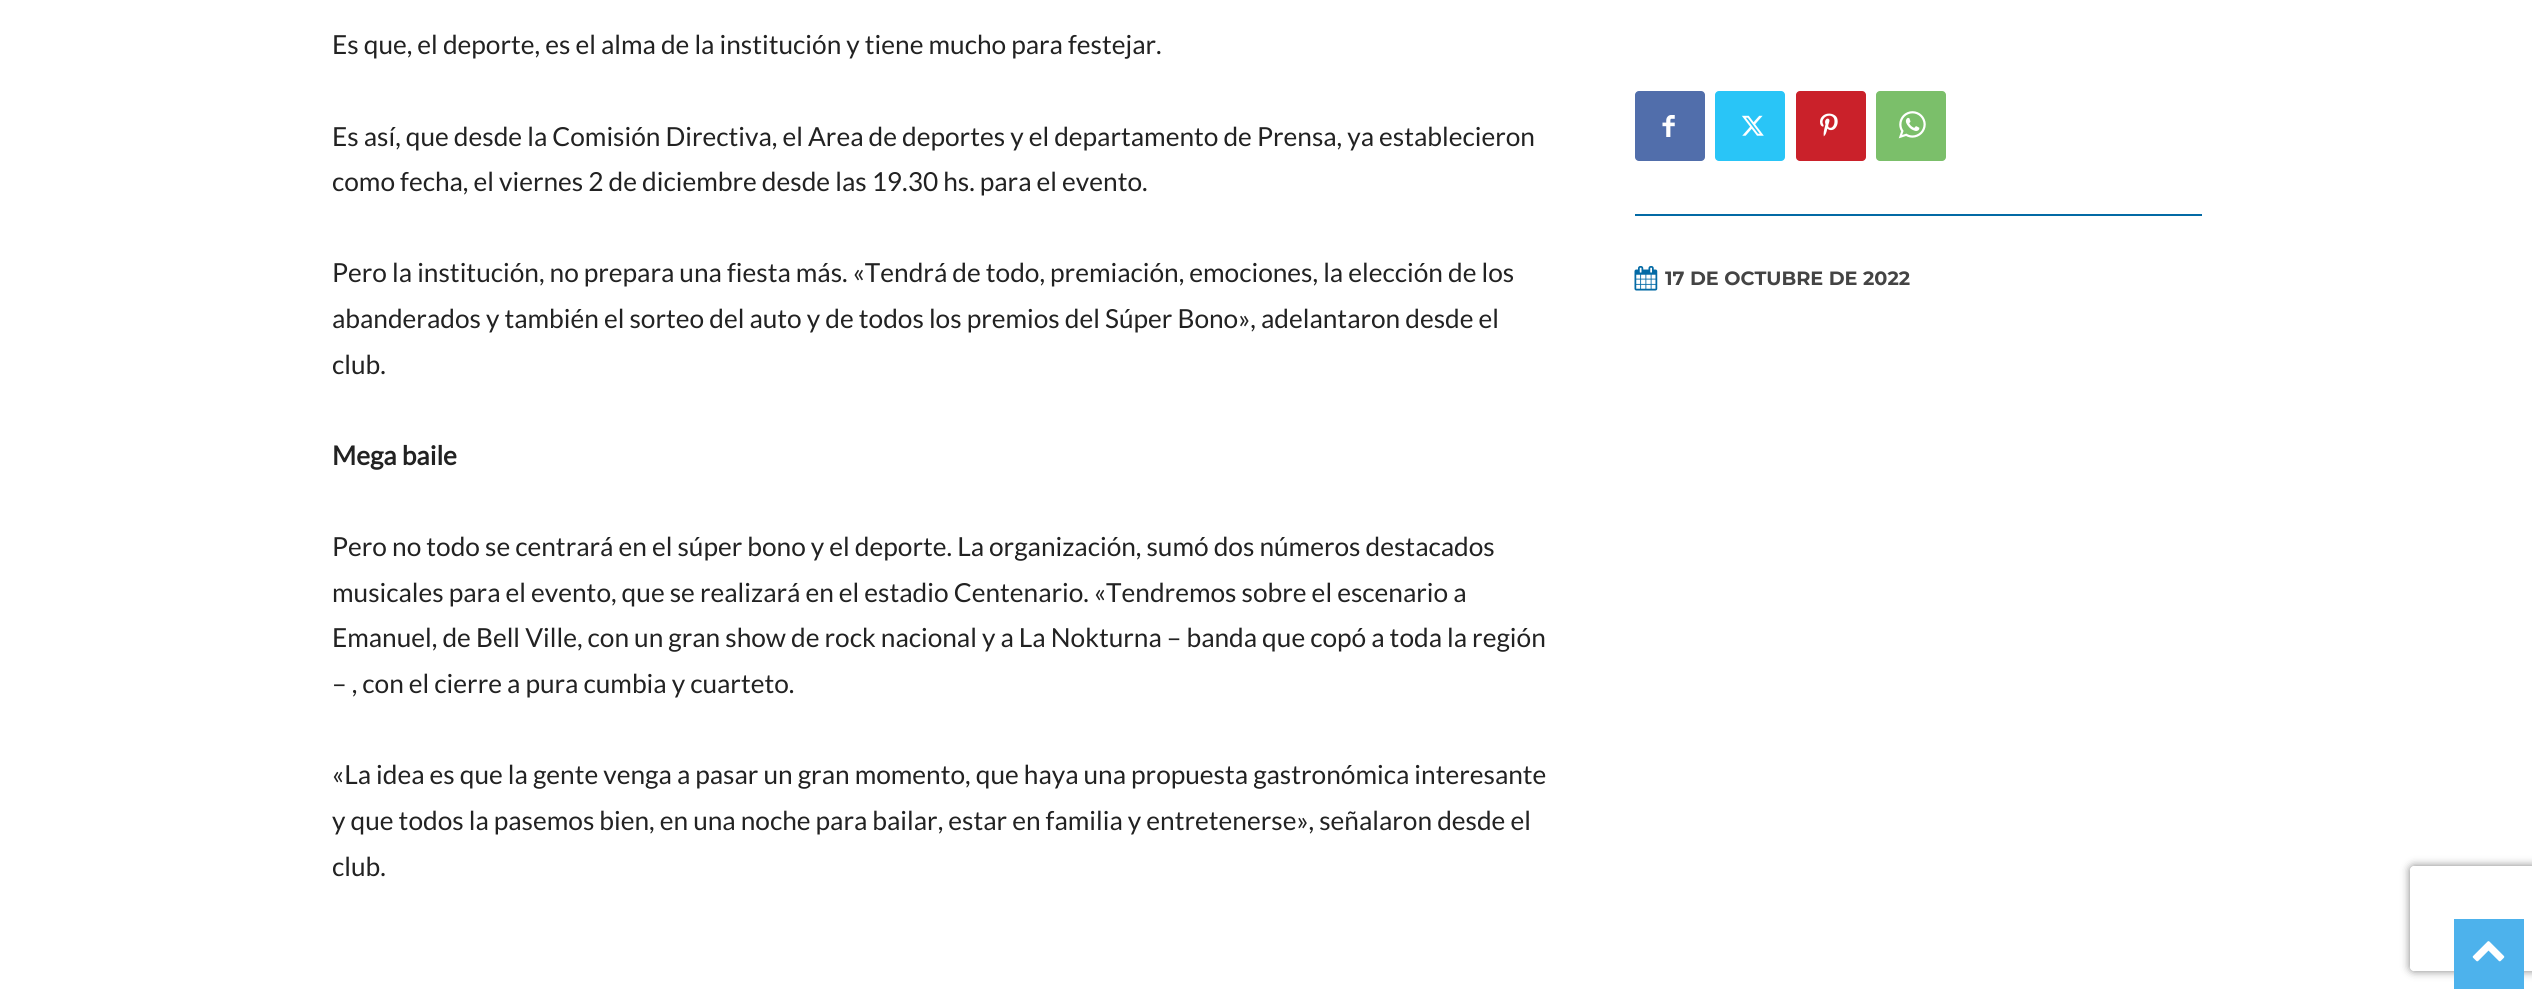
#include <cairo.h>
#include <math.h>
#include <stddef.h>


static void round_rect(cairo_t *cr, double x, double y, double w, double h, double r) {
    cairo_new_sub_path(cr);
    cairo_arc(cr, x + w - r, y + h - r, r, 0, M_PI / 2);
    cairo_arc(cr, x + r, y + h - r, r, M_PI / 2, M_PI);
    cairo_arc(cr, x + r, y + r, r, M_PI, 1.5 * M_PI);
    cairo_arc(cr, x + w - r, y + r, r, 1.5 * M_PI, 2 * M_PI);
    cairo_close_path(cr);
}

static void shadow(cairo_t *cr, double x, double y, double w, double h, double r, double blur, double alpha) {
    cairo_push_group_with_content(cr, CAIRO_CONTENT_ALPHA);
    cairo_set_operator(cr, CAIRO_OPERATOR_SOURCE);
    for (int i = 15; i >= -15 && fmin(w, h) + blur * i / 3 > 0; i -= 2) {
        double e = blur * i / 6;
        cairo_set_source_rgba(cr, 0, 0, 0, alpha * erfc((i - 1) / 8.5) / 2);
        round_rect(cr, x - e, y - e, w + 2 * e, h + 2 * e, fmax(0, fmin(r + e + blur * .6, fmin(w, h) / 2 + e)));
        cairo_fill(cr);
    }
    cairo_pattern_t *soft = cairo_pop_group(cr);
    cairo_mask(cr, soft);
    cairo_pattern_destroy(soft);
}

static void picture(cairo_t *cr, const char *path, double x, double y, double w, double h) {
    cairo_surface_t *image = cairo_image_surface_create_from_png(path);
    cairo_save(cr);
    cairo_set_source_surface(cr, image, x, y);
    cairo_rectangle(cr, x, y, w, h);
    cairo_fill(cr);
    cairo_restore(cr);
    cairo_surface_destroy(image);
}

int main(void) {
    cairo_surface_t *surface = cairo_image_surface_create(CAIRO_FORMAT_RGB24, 2532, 995);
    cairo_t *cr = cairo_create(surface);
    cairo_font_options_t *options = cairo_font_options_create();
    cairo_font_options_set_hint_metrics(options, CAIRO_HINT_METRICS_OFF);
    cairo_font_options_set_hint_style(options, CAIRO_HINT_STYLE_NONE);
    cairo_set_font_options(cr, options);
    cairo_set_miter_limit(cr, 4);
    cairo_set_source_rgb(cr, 1, 1, 1);
    cairo_paint(cr);
    cairo_select_font_face(cr, "Lato", CAIRO_FONT_SLANT_NORMAL, CAIRO_FONT_WEIGHT_NORMAL);
    cairo_set_font_size(cr, 26.25);
    cairo_set_source_rgb(cr, 0.133, 0.133, 0.133);
    cairo_move_to(cr, 332, 54);
    cairo_show_text(cr, "Es que, el deporte, es el alma de la institución y tiene mucho para festejar.");
    cairo_move_to(cr, 332, 146);
    cairo_show_text(cr, "Es así, que desde la Comisión Directiva, el Area de deportes y el departamento de Prensa, ya establecieron");
    cairo_move_to(cr, 332, 191);
    cairo_show_text(cr, "como fecha, el viernes 2 de diciembre desde las 19.30 hs. para el evento.");
    cairo_move_to(cr, 332, 282);
    cairo_show_text(cr, "Pero la institución, no prepara una fiesta más. «Tendrá de todo, premiación, emociones, la elección de los");
    cairo_move_to(cr, 332, 328);
    cairo_show_text(cr, "abanderados y también el sorteo del auto y de todos los premios del Súper Bono», adelantaron desde el");
    cairo_move_to(cr, 332, 374);
    cairo_show_text(cr, "club.");
    cairo_select_font_face(cr, "Lato", CAIRO_FONT_SLANT_NORMAL, CAIRO_FONT_WEIGHT_BOLD);
    cairo_move_to(cr, 332, 465);
    cairo_show_text(cr, "Mega baile");
    cairo_select_font_face(cr, "Lato", CAIRO_FONT_SLANT_NORMAL, CAIRO_FONT_WEIGHT_NORMAL);
    cairo_move_to(cr, 332, 556);
    cairo_show_text(cr, "Pero no todo se centrará en el súper bono y el deporte. La organización, sumó dos números destacados");
    cairo_move_to(cr, 332, 602);
    cairo_show_text(cr, "musicales para el evento, que se realizará en el estadio Centenario. «Tendremos sobre el escenario a");
    cairo_move_to(cr, 332, 647);
    cairo_show_text(cr, "Emanuel, de Bell Ville, con un gran show de rock nacional y a La Nokturna – banda que copó a toda la región");
    cairo_move_to(cr, 332, 693);
    cairo_show_text(cr, "– , con el cierre a pura cumbia y cuarteto.");
    cairo_move_to(cr, 332, 784);
    cairo_show_text(cr, "«La idea es que la gente venga a pasar un gran momento, que haya una propuesta gastronómica interesante");
    cairo_move_to(cr, 332, 830);
    cairo_show_text(cr, "y que todos la pasemos bien, en una noche para bailar, estar en familia y entretenerse», señalaron desde el");
    cairo_move_to(cr, 332, 876);
    cairo_show_text(cr, "club.");
    cairo_set_source_rgb(cr, 0.318, 0.431, 0.671);
    round_rect(cr, 1635, 91, 70, 70, 4);
    cairo_fill(cr);
    picture(cr, "img1.png", 1662, 115, 13, 22);
    cairo_set_source_rgb(cr, 0.161, 0.773, 0.965);
    round_rect(cr, 1715, 91, 70, 70, 4);
    cairo_fill(cr);
    picture(cr, "img2.png", 1741, 115, 23, 21);
    cairo_set_source_rgb(cr, 0.792, 0.129, 0.165);
    round_rect(cr, 1796, 91, 70, 70, 4);
    cairo_fill(cr);
    picture(cr, "img3.png", 1820, 113, 18, 24);
    cairo_set_source_rgb(cr, 0.482, 0.749, 0.416);
    round_rect(cr, 1876, 91, 70, 70, 4);
    cairo_fill(cr);
    picture(cr, "img4.png", 1898, 111, 28, 28);
    cairo_set_source_rgb(cr, 0.012, 0.416, 0.647);
    cairo_rectangle(cr, 1635, 214, 567, 2);
    cairo_fill(cr);
    picture(cr, "img5.png", 1634, 266, 24, 25);
    cairo_select_font_face(cr, "Montserrat", CAIRO_FONT_SLANT_NORMAL, CAIRO_FONT_WEIGHT_BOLD);
    cairo_set_font_size(cr, 19.25);
    cairo_set_source_rgb(cr, 0.267, 0.267, 0.267);
    cairo_move_to(cr, 1665, 285);
    cairo_show_text(cr, "17 DE OCTUBRE DE 2022");
    cairo_save(cr);
    cairo_set_fill_rule(cr, CAIRO_FILL_RULE_EVEN_ODD);
    cairo_new_path(cr);
    cairo_move_to(cr, 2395, 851);
    cairo_line_to(cr, 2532, 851);
    cairo_line_to(cr, 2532, 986);
    cairo_line_to(cr, 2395, 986);
    cairo_close_path(cr);
    cairo_move_to(cr, 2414, 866);
    cairo_line_to(cr, 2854, 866);
    cairo_curve_to(cr, 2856, 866, 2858, 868, 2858, 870);
    cairo_line_to(cr, 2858, 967);
    cairo_curve_to(cr, 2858, 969, 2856, 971, 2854, 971);
    cairo_line_to(cr, 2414, 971);
    cairo_curve_to(cr, 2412, 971, 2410, 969, 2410, 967);
    cairo_line_to(cr, 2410, 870);
    cairo_curve_to(cr, 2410, 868, 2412, 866, 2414, 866);
    cairo_close_path(cr);
    cairo_clip(cr);
    cairo_set_source_rgb(cr, 0.502, 0.502, 0.502);
    shadow(cr, 2410, 866, 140, 105, 4, 4.5, 1);
    cairo_restore(cr);
    cairo_set_source_rgb(cr, 0.302, 0.698, 0.925);
    cairo_rectangle(cr, 2454, 919, 70, 70);
    cairo_fill(cr);
    picture(cr, "img6.png", 2472, 941, 33, 21);
    cairo_surface_write_to_png(surface, "page.png");
    cairo_font_options_destroy(options);
    cairo_destroy(cr);
    cairo_surface_destroy(surface);
    return 0;
}
